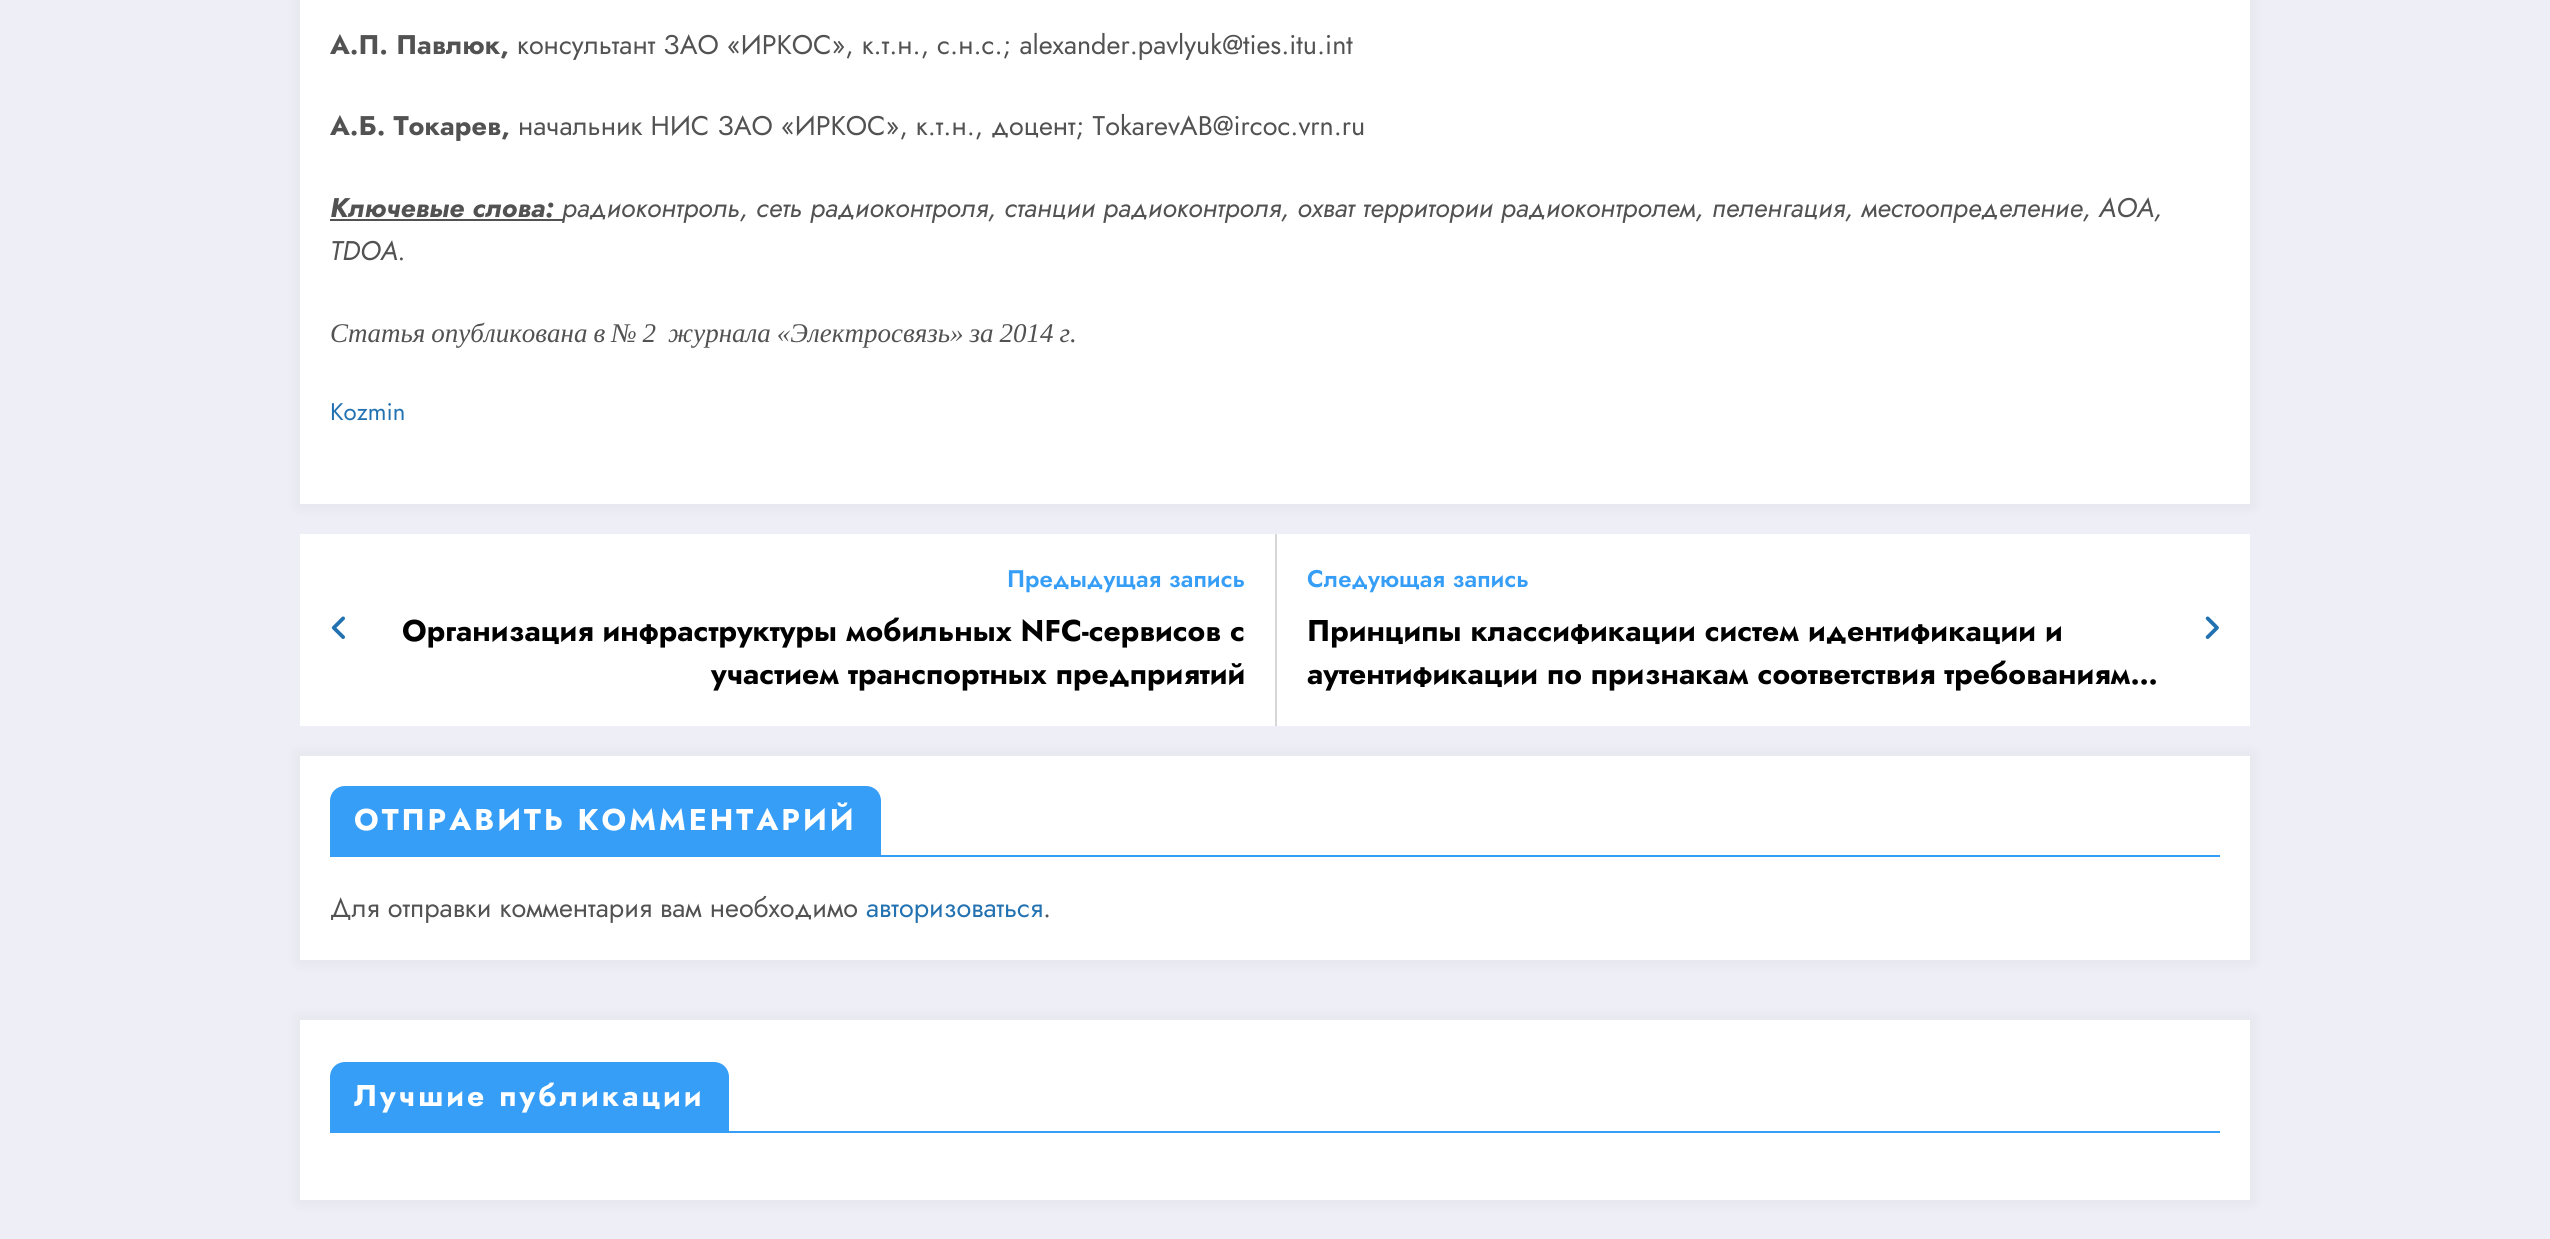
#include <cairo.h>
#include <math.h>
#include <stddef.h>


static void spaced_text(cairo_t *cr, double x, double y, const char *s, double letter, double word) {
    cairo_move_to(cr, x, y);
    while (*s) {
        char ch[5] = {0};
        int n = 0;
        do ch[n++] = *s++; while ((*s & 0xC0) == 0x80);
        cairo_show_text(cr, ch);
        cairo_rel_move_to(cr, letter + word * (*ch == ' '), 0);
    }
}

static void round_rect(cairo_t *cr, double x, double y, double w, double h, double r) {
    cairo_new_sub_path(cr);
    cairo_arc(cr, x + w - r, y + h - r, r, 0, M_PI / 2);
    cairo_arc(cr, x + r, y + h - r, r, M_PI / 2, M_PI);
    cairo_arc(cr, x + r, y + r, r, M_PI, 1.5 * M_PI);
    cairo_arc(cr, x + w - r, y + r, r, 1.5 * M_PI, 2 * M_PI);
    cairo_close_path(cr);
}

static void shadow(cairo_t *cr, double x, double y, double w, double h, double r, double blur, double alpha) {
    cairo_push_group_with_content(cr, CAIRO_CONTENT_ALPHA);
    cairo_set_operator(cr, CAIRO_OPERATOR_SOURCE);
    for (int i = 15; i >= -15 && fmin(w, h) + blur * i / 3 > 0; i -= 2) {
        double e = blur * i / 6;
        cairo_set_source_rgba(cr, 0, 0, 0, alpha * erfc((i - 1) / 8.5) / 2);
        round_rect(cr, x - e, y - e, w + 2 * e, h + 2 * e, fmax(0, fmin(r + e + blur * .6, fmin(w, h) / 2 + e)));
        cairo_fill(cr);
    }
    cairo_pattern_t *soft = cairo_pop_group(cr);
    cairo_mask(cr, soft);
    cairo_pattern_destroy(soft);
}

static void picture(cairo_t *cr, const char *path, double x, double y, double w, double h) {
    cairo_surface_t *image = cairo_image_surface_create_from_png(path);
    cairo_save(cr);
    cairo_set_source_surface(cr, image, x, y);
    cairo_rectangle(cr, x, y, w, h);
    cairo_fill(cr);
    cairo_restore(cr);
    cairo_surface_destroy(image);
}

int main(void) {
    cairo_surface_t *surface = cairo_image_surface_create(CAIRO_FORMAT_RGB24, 2550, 1239);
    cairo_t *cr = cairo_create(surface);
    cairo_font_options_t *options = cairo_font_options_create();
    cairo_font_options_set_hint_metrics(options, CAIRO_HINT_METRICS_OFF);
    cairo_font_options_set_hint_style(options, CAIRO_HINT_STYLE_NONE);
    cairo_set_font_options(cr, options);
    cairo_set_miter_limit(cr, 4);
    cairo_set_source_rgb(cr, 0.933, 0.933, 0.961);
    cairo_paint(cr);
    cairo_set_source_rgb(cr, 0.09, 0.09, 0.137);
    shadow(cr, 297, -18, 1956, 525, 0, 6, 0.05);
    cairo_set_source_rgb(cr, 1, 1, 1);
    cairo_rectangle(cr, 300, 0, 1950, 504);
    cairo_fill(cr);
    cairo_select_font_face(cr, "Jost", CAIRO_FONT_SLANT_NORMAL, CAIRO_FONT_WEIGHT_BOLD);
    cairo_set_font_size(cr, 27);
    cairo_set_source_rgb(cr, 0.322, 0.322, 0.322);
    cairo_move_to(cr, 330, 54);
    cairo_show_text(cr, "А.П. Павлюк,");
    cairo_select_font_face(cr, "Jost", CAIRO_FONT_SLANT_NORMAL, CAIRO_FONT_WEIGHT_NORMAL);
    cairo_move_to(cr, 517, 54);
    cairo_show_text(cr, "консультант ЗАО «ИРКОС», к.т.н., с.н.с.; alexander.pavlyuk@ties.itu.int");
    cairo_select_font_face(cr, "Jost", CAIRO_FONT_SLANT_NORMAL, CAIRO_FONT_WEIGHT_BOLD);
    cairo_move_to(cr, 330, 135);
    cairo_show_text(cr, "А.Б. Токарев,");
    cairo_select_font_face(cr, "Jost", CAIRO_FONT_SLANT_NORMAL, CAIRO_FONT_WEIGHT_NORMAL);
    cairo_move_to(cr, 518, 135);
    cairo_show_text(cr, "начальник НИС ЗАО «ИРКОС», к.т.н., доцент; TokarevAB@ircoc.vrn.ru");
    cairo_select_font_face(cr, "Jost", CAIRO_FONT_SLANT_ITALIC, CAIRO_FONT_WEIGHT_BOLD);
    cairo_move_to(cr, 330, 217);
    cairo_show_text(cr, "Ключевые слова:");
    cairo_rectangle(cr, 330, 219, 233, 2);
    cairo_fill(cr);
    cairo_select_font_face(cr, "Jost", CAIRO_FONT_SLANT_ITALIC, CAIRO_FONT_WEIGHT_NORMAL);
    cairo_move_to(cr, 562, 217);
    cairo_show_text(cr, "радиоконтроль, сеть радиоконтроля, станции радиоконтроля, охват территории радиоконтролем, пеленгация, местоопределение, АОА,");
    cairo_move_to(cr, 330, 260);
    cairo_show_text(cr, "TDOA.");
    cairo_select_font_face(cr, "Liberation Serif", CAIRO_FONT_SLANT_ITALIC, CAIRO_FONT_WEIGHT_NORMAL);
    spaced_text(cr, 330, 342, "Статья опубликована в № 2  журнала «Электросвязь» за 2014 г.", 0, -0.75);
    cairo_select_font_face(cr, "Jost", CAIRO_FONT_SLANT_NORMAL, CAIRO_FONT_WEIGHT_NORMAL);
    cairo_set_font_size(cr, 24);
    cairo_set_source_rgb(cr, 0.133, 0.443, 0.694);
    cairo_move_to(cr, 330, 420);
    cairo_show_text(cr, "Kozmin");
    cairo_set_source_rgb(cr, 1, 1, 1);
    cairo_rectangle(cr, 300, 534, 1950, 192);
    cairo_fill(cr);
    picture(cr, "img1.png", 331, 616, 14, 23);
    cairo_select_font_face(cr, "Jost SemiBold", CAIRO_FONT_SLANT_NORMAL, CAIRO_FONT_WEIGHT_NORMAL);
    cairo_set_source_rgb(cr, 0.212, 0.62, 0.965);
    cairo_move_to(cr, 1007, 587);
    cairo_show_text(cr, "Предыдущая запись");
    cairo_select_font_face(cr, "Jost", CAIRO_FONT_SLANT_NORMAL, CAIRO_FONT_WEIGHT_BOLD);
    cairo_set_font_size(cr, 30);
    cairo_set_source_rgb(cr, 0, 0, 0);
    cairo_move_to(cr, 402, 641);
    cairo_show_text(cr, "Организация инфраструктуры мобильных NFC-сервисов с");
    cairo_move_to(cr, 711, 684);
    cairo_show_text(cr, "участием транспортных предприятий");
    cairo_set_source_rgb(cr, 0.843, 0.843, 0.843);
    cairo_rectangle(cr, 1275, 534, 2, 192);
    cairo_fill(cr);
    cairo_select_font_face(cr, "Jost SemiBold", CAIRO_FONT_SLANT_NORMAL, CAIRO_FONT_WEIGHT_NORMAL);
    cairo_set_font_size(cr, 24);
    cairo_set_source_rgb(cr, 0.212, 0.62, 0.965);
    cairo_move_to(cr, 1307, 587);
    cairo_show_text(cr, "Следующая запись");
    cairo_select_font_face(cr, "Jost", CAIRO_FONT_SLANT_NORMAL, CAIRO_FONT_WEIGHT_BOLD);
    cairo_set_font_size(cr, 30);
    cairo_set_source_rgb(cr, 0, 0, 0);
    cairo_move_to(cr, 1307, 641);
    cairo_show_text(cr, "Принципы классификации систем идентификации и");
    cairo_move_to(cr, 1307, 684);
    cairo_show_text(cr, "аутентификации по признакам соответствия требованиям…");
    picture(cr, "img2.png", 2205, 616, 14, 23);
    cairo_set_source_rgb(cr, 0.09, 0.09, 0.137);
    shadow(cr, 297, 753, 1956, 210, 0, 6, 0.05);
    cairo_set_source_rgb(cr, 1, 1, 1);
    cairo_rectangle(cr, 300, 756, 1950, 204);
    cairo_fill(cr);
    cairo_set_source_rgb(cr, 0.212, 0.62, 0.965);
    cairo_rectangle(cr, 330, 855, 1890, 2);
    cairo_fill(cr);
    cairo_new_path(cr);
    cairo_move_to(cr, 345, 786);
    cairo_line_to(cr, 866, 786);
    cairo_curve_to(cr, 874.5, 786, 881, 792.5, 881, 801);
    cairo_line_to(cr, 881, 855);
    cairo_line_to(cr, 330, 855);
    cairo_line_to(cr, 330, 801);
    cairo_curve_to(cr, 330, 792.5, 336.5, 786, 345, 786);
    cairo_close_path(cr);
    cairo_fill(cr);
    cairo_set_source_rgb(cr, 1, 1, 1);
    spaced_text(cr, 354, 830, "ОТПРАВИТЬ КОММЕНТАРИЙ", 3, 0);
    cairo_select_font_face(cr, "Jost", CAIRO_FONT_SLANT_NORMAL, CAIRO_FONT_WEIGHT_NORMAL);
    cairo_set_font_size(cr, 27);
    cairo_set_source_rgb(cr, 0.322, 0.322, 0.322);
    cairo_move_to(cr, 330, 917);
    cairo_show_text(cr, "Для отправки комментария вам необходимо");
    cairo_set_source_rgb(cr, 0.133, 0.443, 0.694);
    cairo_move_to(cr, 866, 917);
    cairo_show_text(cr, "авторизоваться");
    cairo_set_source_rgb(cr, 0.322, 0.322, 0.322);
    cairo_move_to(cr, 1043, 917);
    cairo_show_text(cr, ".");
    cairo_set_source_rgb(cr, 0.09, 0.09, 0.137);
    shadow(cr, 297, 1017, 1956, 186, 0, 6, 0.05);
    cairo_set_source_rgb(cr, 1, 1, 1);
    cairo_rectangle(cr, 300, 1020, 1950, 180);
    cairo_fill(cr);
    cairo_set_source_rgb(cr, 0.212, 0.62, 0.965);
    cairo_rectangle(cr, 330, 1131, 1890, 2);
    cairo_fill(cr);
    cairo_new_path(cr);
    cairo_move_to(cr, 345, 1062);
    cairo_line_to(cr, 714, 1062);
    cairo_curve_to(cr, 722.5, 1062, 729, 1068.5, 729, 1077);
    cairo_line_to(cr, 729, 1131);
    cairo_line_to(cr, 330, 1131);
    cairo_line_to(cr, 330, 1077);
    cairo_curve_to(cr, 330, 1068.5, 336.5, 1062, 345, 1062);
    cairo_close_path(cr);
    cairo_fill(cr);
    cairo_select_font_face(cr, "Jost", CAIRO_FONT_SLANT_NORMAL, CAIRO_FONT_WEIGHT_BOLD);
    cairo_set_font_size(cr, 30);
    cairo_set_source_rgb(cr, 1, 1, 1);
    spaced_text(cr, 354, 1106, "Лучшие публикации", 3, 0);
    cairo_surface_write_to_png(surface, "page.png");
    cairo_font_options_destroy(options);
    cairo_destroy(cr);
    cairo_surface_destroy(surface);
    return 0;
}
